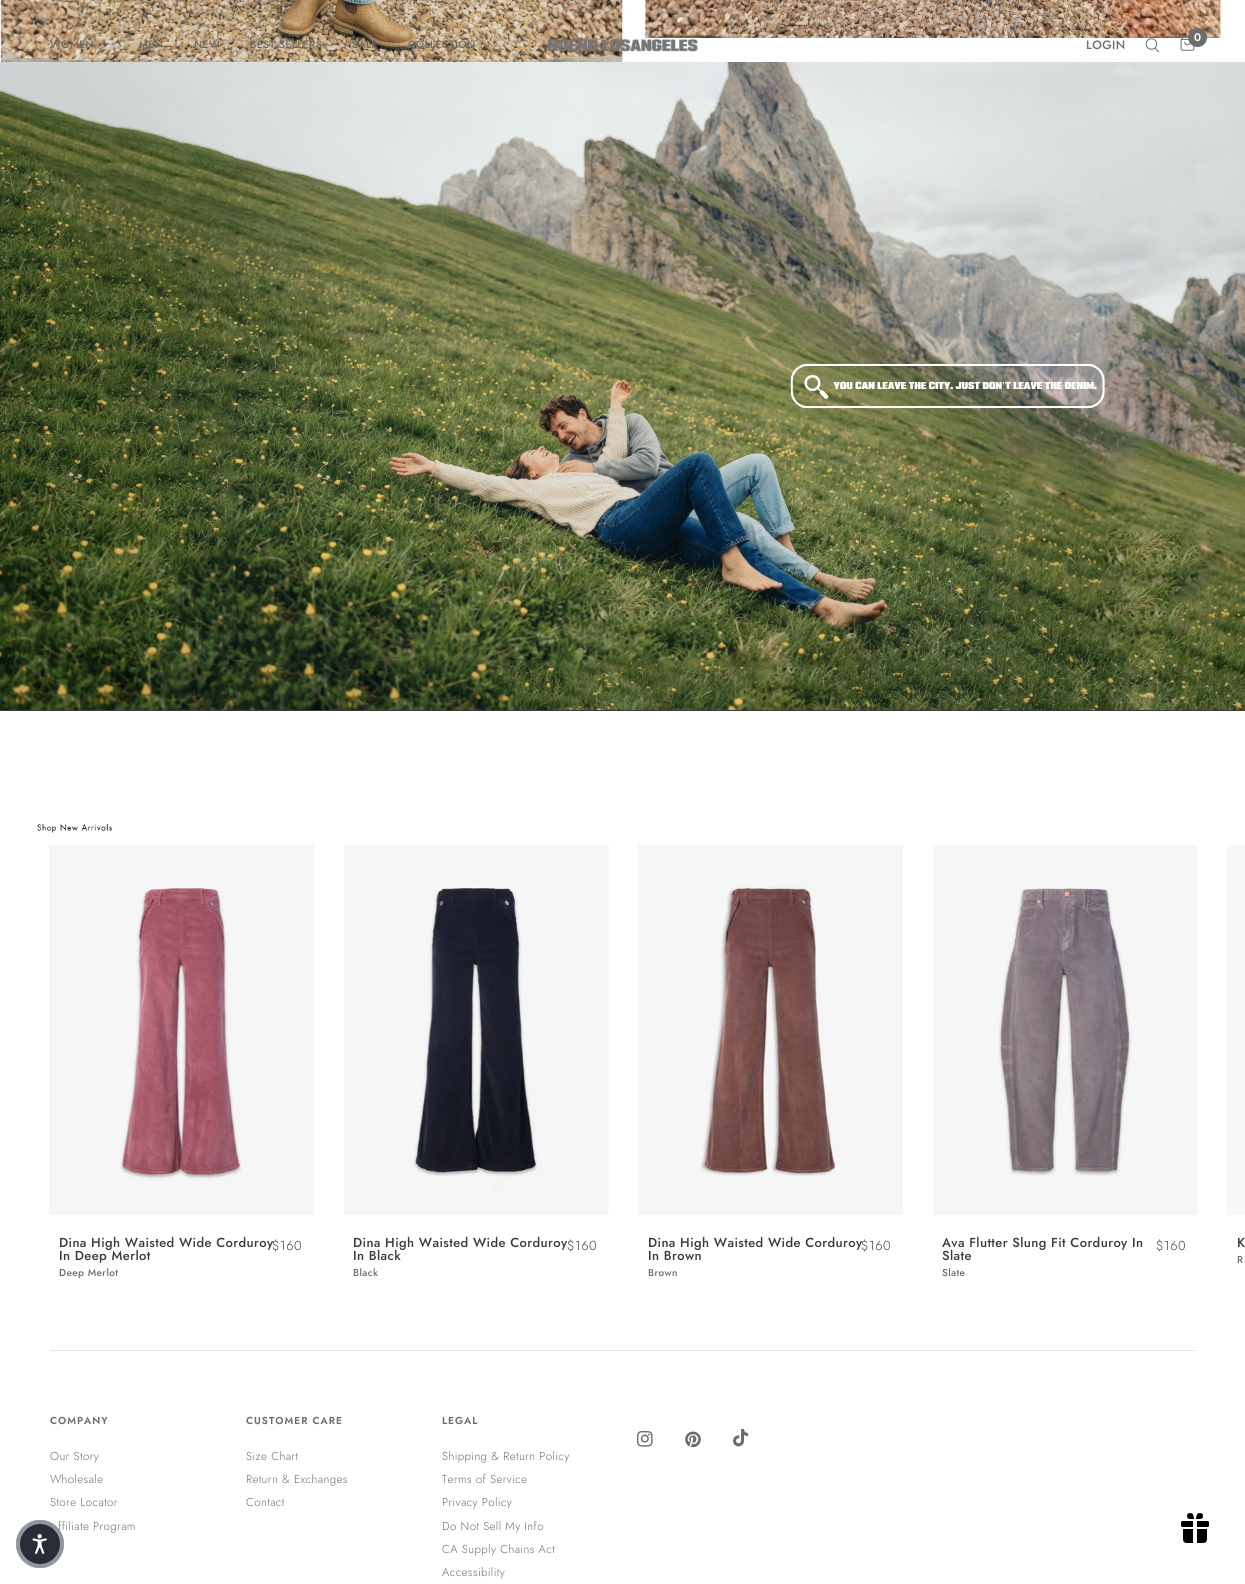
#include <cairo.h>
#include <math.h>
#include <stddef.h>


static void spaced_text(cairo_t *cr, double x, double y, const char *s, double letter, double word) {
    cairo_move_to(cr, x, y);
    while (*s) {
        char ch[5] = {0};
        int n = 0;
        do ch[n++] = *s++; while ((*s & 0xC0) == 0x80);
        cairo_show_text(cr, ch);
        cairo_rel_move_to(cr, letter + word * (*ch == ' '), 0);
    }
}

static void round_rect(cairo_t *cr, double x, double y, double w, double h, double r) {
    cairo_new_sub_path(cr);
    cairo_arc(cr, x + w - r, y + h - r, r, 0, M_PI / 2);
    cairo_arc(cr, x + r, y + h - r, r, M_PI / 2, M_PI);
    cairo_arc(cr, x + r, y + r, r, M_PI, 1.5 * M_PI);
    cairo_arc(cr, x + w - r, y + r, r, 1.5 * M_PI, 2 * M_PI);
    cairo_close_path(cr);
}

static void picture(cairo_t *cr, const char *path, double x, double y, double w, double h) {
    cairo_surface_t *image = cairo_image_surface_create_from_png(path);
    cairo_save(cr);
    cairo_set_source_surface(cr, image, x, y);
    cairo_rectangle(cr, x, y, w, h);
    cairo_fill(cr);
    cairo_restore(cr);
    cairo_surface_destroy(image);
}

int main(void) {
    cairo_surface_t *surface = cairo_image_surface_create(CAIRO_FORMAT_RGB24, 1245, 1584);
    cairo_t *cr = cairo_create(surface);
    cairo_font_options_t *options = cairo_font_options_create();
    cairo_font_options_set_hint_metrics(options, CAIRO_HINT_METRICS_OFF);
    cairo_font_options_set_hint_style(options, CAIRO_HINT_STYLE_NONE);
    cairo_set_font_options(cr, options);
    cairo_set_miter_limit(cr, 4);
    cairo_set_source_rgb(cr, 1, 1, 1);
    cairo_paint(cr);
    picture(cr, "img4.png", 0, 0, 1245, 62);
    cairo_select_font_face(cr, "Jost Medium", CAIRO_FONT_SLANT_NORMAL, CAIRO_FONT_WEIGHT_NORMAL);
    cairo_set_font_size(cr, 10.5);
    cairo_set_source_rgb(cr, 0.424, 0.424, 0.424);
    spaced_text(cr, 50, 48, "WOMEN", 0.4, 0);
    cairo_new_path(cr);
    cairo_move_to(cr, 108, 43.5);
    cairo_line_to(cr, 105, 46.5);
    cairo_line_to(cr, 102, 43.5);
    cairo_set_line_width(cr, 1.1);
    cairo_set_line_cap(cr, CAIRO_LINE_CAP_ROUND);
    cairo_set_line_join(cr, CAIRO_LINE_JOIN_ROUND);
    cairo_stroke(cr);
    spaced_text(cr, 139, 48, "MEN", 0.4, 0);
    spaced_text(cr, 194, 48, "NEW", 0.4, 0);
    spaced_text(cr, 250, 48, "BEST SELLERS", 0.4, 0);
    spaced_text(cr, 352, 48, "SALE", 0.4, 0);
    spaced_text(cr, 408, 48, "COLLECTION", 0.4, 0);
    cairo_new_path(cr);
    cairo_move_to(cr, 490, 43.5);
    cairo_line_to(cr, 487, 46.5);
    cairo_line_to(cr, 484, 43.5);
    cairo_stroke(cr);
    picture(cr, "img1.png", 547, 38, 151, 14);
    cairo_set_font_size(cr, 12);
    spaced_text(cr, 1086, 49, "LOGIN", 0.4, 0);
    picture(cr, "img2.png", 1145, 38, 15, 15);
    picture(cr, "img3.png", 1180, 36, 15, 15);
    cairo_arc(cr, 1197.5, 37.5, 9.5, 0, 2 * M_PI);
    cairo_fill(cr);
    cairo_select_font_face(cr, "Jost SemiBold", CAIRO_FONT_SLANT_NORMAL, CAIRO_FONT_WEIGHT_NORMAL);
    cairo_set_font_size(cr, 11);
    cairo_set_source_rgb(cr, 1, 1, 1);
    spaced_text(cr, 1194, 41, "0", 0.4, 0);
    cairo_set_source_rgb(cr, 0.239, 0.224, 0.224);
    cairo_rectangle(cr, 0, 710, 1245, 1);
    cairo_fill(cr);
    picture(cr, "img5.png", 0, 62, 1245, 648);
    picture(cr, "img6.png", 0, 711, 1245, 134);
    picture(cr, "img7.png", 49, 845, 265, 370);
    cairo_select_font_face(cr, "Jost Medium", CAIRO_FONT_SLANT_NORMAL, CAIRO_FONT_WEIGHT_NORMAL);
    cairo_set_font_size(cr, 13);
    spaced_text(cr, 59, 1247, "Dina High Waisted Wide Corduroy", 0.4, 0);
    spaced_text(cr, 59, 1260, "In Deep Merlot", 0.4, 0);
    cairo_select_font_face(cr, "Jost Light", CAIRO_FONT_SLANT_NORMAL, CAIRO_FONT_WEIGHT_NORMAL);
    spaced_text(cr, 272, 1250, "$160", 0.5, 0);
    cairo_select_font_face(cr, "Jost Medium", CAIRO_FONT_SLANT_NORMAL, CAIRO_FONT_WEIGHT_NORMAL);
    cairo_set_font_size(cr, 10);
    cairo_set_source_rgb(cr, 0.424, 0.424, 0.424);
    spaced_text(cr, 59, 1276, "Deep Merlot", 0.4, 0);
    picture(cr, "img8.png", 344, 845, 265, 370);
    cairo_set_font_size(cr, 13);
    cairo_set_source_rgb(cr, 0.239, 0.224, 0.224);
    spaced_text(cr, 353, 1247, "Dina High Waisted Wide Corduroy", 0.4, 0);
    spaced_text(cr, 353, 1260, "In Black", 0.4, 0);
    cairo_select_font_face(cr, "Jost Light", CAIRO_FONT_SLANT_NORMAL, CAIRO_FONT_WEIGHT_NORMAL);
    spaced_text(cr, 567, 1250, "$160", 0.5, 0);
    cairo_select_font_face(cr, "Jost Medium", CAIRO_FONT_SLANT_NORMAL, CAIRO_FONT_WEIGHT_NORMAL);
    cairo_set_font_size(cr, 10);
    cairo_set_source_rgb(cr, 0.424, 0.424, 0.424);
    spaced_text(cr, 353, 1276, "Black", 0.4, 0);
    picture(cr, "img9.png", 638, 845, 265, 370);
    cairo_set_font_size(cr, 13);
    cairo_set_source_rgb(cr, 0.239, 0.224, 0.224);
    spaced_text(cr, 648, 1247, "Dina High Waisted Wide Corduroy", 0.4, 0);
    spaced_text(cr, 648, 1260, "In Brown", 0.4, 0);
    cairo_select_font_face(cr, "Jost Light", CAIRO_FONT_SLANT_NORMAL, CAIRO_FONT_WEIGHT_NORMAL);
    spaced_text(cr, 861, 1250, "$160", 0.5, 0);
    cairo_select_font_face(cr, "Jost Medium", CAIRO_FONT_SLANT_NORMAL, CAIRO_FONT_WEIGHT_NORMAL);
    cairo_set_font_size(cr, 10);
    cairo_set_source_rgb(cr, 0.424, 0.424, 0.424);
    spaced_text(cr, 648, 1276, "Brown", 0.4, 0);
    picture(cr, "img10.png", 933, 845, 265, 370);
    cairo_set_font_size(cr, 13);
    cairo_set_source_rgb(cr, 0.239, 0.224, 0.224);
    spaced_text(cr, 942, 1247, "Ava Flutter Slung Fit Corduroy In", 0.4, 0);
    spaced_text(cr, 942, 1260, "Slate", 0.4, 0);
    cairo_select_font_face(cr, "Jost Light", CAIRO_FONT_SLANT_NORMAL, CAIRO_FONT_WEIGHT_NORMAL);
    spaced_text(cr, 1156, 1250, "$160", 0.5, 0);
    cairo_select_font_face(cr, "Jost Medium", CAIRO_FONT_SLANT_NORMAL, CAIRO_FONT_WEIGHT_NORMAL);
    cairo_set_font_size(cr, 10);
    cairo_set_source_rgb(cr, 0.424, 0.424, 0.424);
    spaced_text(cr, 942, 1276, "Slate", 0.4, 0);
    cairo_set_source_rgb(cr, 0.965, 0.965, 0.965);
    cairo_rectangle(cr, 1227, 845, 18, 370);
    cairo_fill(cr);
    cairo_set_font_size(cr, 13);
    cairo_set_source_rgb(cr, 0.239, 0.224, 0.224);
    spaced_text(cr, 1237, 1247, "K", 0.4, 0);
    cairo_set_font_size(cr, 10);
    cairo_set_source_rgb(cr, 0.424, 0.424, 0.424);
    spaced_text(cr, 1237, 1263, "R", 0.4, 0);
    cairo_set_source_rgb(cr, 0.886, 0.886, 0.886);
    round_rect(cr, 50, 1350, 1145, 1, 0.5);
    cairo_fill(cr);
    cairo_select_font_face(cr, "Jost SemiBold", CAIRO_FONT_SLANT_NORMAL, CAIRO_FONT_WEIGHT_NORMAL);
    cairo_set_font_size(cr, 10.1);
    cairo_set_source_rgb(cr, 0.424, 0.424, 0.424);
    spaced_text(cr, 50, 1424, "COMPANY", 1, 0);
    cairo_select_font_face(cr, "Jost Light", CAIRO_FONT_SLANT_NORMAL, CAIRO_FONT_WEIGHT_NORMAL);
    cairo_set_font_size(cr, 11.5);
    spaced_text(cr, 50, 1460, "Our Story", 0.4, 0);
    spaced_text(cr, 50, 1483, "Wholesale", 0.4, 0);
    spaced_text(cr, 50, 1506, "Store Locator", 0.4, 0);
    spaced_text(cr, 58, 1530, "ffiliate Program", 0.4, 0);
    cairo_select_font_face(cr, "Jost SemiBold", CAIRO_FONT_SLANT_NORMAL, CAIRO_FONT_WEIGHT_NORMAL);
    cairo_set_font_size(cr, 10.1);
    spaced_text(cr, 246, 1424, "CUSTOMER CARE", 1, 0);
    cairo_select_font_face(cr, "Jost Light", CAIRO_FONT_SLANT_NORMAL, CAIRO_FONT_WEIGHT_NORMAL);
    cairo_set_font_size(cr, 11.5);
    spaced_text(cr, 246, 1460, "Size Chart", 0.4, 0);
    spaced_text(cr, 246, 1483, "Return & Exchanges", 0.4, 0);
    spaced_text(cr, 246, 1506, "Contact", 0.4, 0);
    cairo_select_font_face(cr, "Jost SemiBold", CAIRO_FONT_SLANT_NORMAL, CAIRO_FONT_WEIGHT_NORMAL);
    cairo_set_font_size(cr, 10.1);
    spaced_text(cr, 442, 1424, "LEGAL", 1, 0);
    cairo_select_font_face(cr, "Jost Light", CAIRO_FONT_SLANT_NORMAL, CAIRO_FONT_WEIGHT_NORMAL);
    cairo_set_font_size(cr, 11.5);
    spaced_text(cr, 442, 1460, "Shipping & Return Policy", 0.4, 0);
    spaced_text(cr, 442, 1483, "Terms of Service", 0.4, 0);
    spaced_text(cr, 442, 1506, "Privacy Policy", 0.4, 0);
    spaced_text(cr, 442, 1530, "Do Not Sell My Info", 0.4, 0);
    spaced_text(cr, 442, 1553, "CA Supply Chains Act", 0.4, 0);
    spaced_text(cr, 442, 1576, "Accessibility", 0.4, 0);
    picture(cr, "img11.png", 637, 1431, 16, 16);
    picture(cr, "img12.png", 685, 1431, 16, 16);
    picture(cr, "img13.png", 733, 1429, 16, 18);
    cairo_set_source_rgb(cr, 0.153, 0.176, 0.212);
    cairo_arc(cr, 40, 1544, 24, 0, 2 * M_PI);
    cairo_fill(cr);
    cairo_arc(cr, 40, 1544, 22, 0, 2 * M_PI);
    cairo_set_source_rgba(cr, 1, 1, 1, 0.5);
    cairo_set_line_width(cr, 4);
    cairo_set_line_cap(cr, CAIRO_LINE_CAP_BUTT);
    cairo_set_line_join(cr, CAIRO_LINE_JOIN_MITER);
    cairo_stroke(cr);
    picture(cr, "img14.png", 32, 1534, 15, 20);
    picture(cr, "img15.png", 1181, 1513, 28, 30);
    cairo_surface_write_to_png(surface, "page.png");
    cairo_font_options_destroy(options);
    cairo_destroy(cr);
    cairo_surface_destroy(surface);
    return 0;
}
